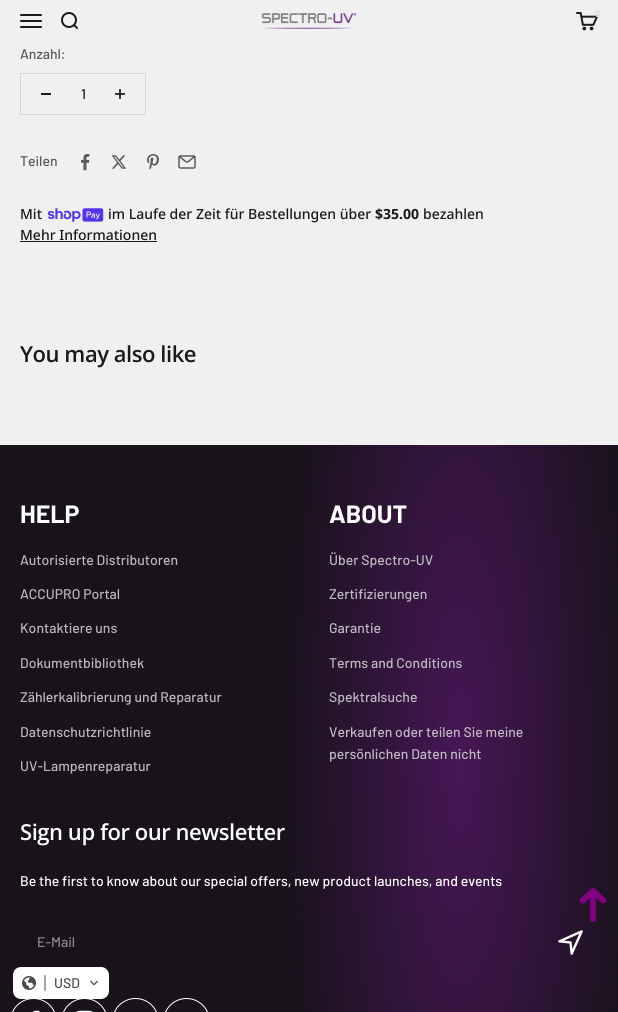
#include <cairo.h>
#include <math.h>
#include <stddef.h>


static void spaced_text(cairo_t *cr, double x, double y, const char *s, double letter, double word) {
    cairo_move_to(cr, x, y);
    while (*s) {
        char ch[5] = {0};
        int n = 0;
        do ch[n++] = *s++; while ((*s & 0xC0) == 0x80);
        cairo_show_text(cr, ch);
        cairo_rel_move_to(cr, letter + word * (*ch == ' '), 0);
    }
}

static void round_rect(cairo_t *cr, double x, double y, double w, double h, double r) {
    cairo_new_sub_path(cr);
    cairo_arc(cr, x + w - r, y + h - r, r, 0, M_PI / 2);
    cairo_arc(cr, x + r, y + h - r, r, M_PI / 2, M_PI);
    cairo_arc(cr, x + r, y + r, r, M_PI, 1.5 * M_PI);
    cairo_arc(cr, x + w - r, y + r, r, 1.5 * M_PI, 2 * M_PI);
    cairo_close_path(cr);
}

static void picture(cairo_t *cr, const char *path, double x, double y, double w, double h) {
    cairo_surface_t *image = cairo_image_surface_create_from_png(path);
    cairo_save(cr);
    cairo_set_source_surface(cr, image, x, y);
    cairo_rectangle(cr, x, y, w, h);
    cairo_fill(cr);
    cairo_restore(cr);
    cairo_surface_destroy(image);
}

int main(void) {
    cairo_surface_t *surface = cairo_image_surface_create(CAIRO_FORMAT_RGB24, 618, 1012);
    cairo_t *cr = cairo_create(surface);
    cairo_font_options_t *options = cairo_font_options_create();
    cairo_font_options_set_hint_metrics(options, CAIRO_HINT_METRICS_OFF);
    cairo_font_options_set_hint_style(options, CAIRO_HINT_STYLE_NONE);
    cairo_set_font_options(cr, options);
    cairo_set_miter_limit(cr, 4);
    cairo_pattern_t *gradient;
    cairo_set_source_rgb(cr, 0.941, 0.941, 0.941);
    cairo_paint(cr);
    cairo_set_source_rgb(cr, 0.227, 0.227, 0.227);
    cairo_rectangle(cr, 115, 93, 10, 2);
    cairo_fill(cr);
    picture(cr, "img1.png", 20, 14, 22, 14);
    picture(cr, "img2.png", 61, 12, 17, 17);
    picture(cr, "img3.png", 261, 13, 96, 16);
    picture(cr, "img4.png", 576, 12, 22, 19);
    cairo_select_font_face(cr, "Barlow", CAIRO_FONT_SLANT_NORMAL, CAIRO_FONT_WEIGHT_BOLD);
    cairo_set_font_size(cr, 9);
    cairo_set_source_rgb(cr, 0.863, 0.863, 0.863);
    cairo_move_to(cr, 595, 17);
    cairo_show_text(cr, "0");
    cairo_select_font_face(cr, "Barlow Medium", CAIRO_FONT_SLANT_NORMAL, CAIRO_FONT_WEIGHT_NORMAL);
    cairo_set_font_size(cr, 14);
    cairo_set_source_rgb(cr, 0.353, 0.353, 0.353);
    cairo_move_to(cr, 20, 59);
    cairo_show_text(cr, "Anzahl:");
    cairo_rectangle(cr, 20.5, 73.5, 125, 41);
    cairo_set_source_rgb(cr, 0.839, 0.839, 0.839);
    cairo_set_line_width(cr, 1);
    cairo_stroke(cr);
    cairo_set_source_rgb(cr, 0.102, 0.102, 0.102);
    cairo_rectangle(cr, 41, 93, 10, 2);
    cairo_fill(cr);
    cairo_move_to(cr, 81, 99);
    cairo_show_text(cr, "1");
    cairo_set_source_rgb(cr, 0.227, 0.227, 0.227);
    cairo_rectangle(cr, 119, 89, 2, 10);
    cairo_fill(cr);
    cairo_set_source_rgb(cr, 0.122, 0.122, 0.122);
    cairo_rectangle(cr, 119, 93, 2, 2);
    cairo_fill(cr);
    cairo_set_source_rgb(cr, 0.353, 0.353, 0.353);
    cairo_move_to(cr, 20, 166);
    cairo_show_text(cr, "Teilen");
    picture(cr, "img5.png", 81, 154, 9, 17);
    picture(cr, "img6.png", 111, 155, 16, 14);
    picture(cr, "img7.png", 147, 154, 12, 16);
    picture(cr, "img8.png", 178, 155, 18, 14);
    cairo_select_font_face(cr, "Noto Sans Medium", CAIRO_FONT_SLANT_NORMAL, CAIRO_FONT_WEIGHT_NORMAL);
    cairo_set_source_rgb(cr, 0.102, 0.102, 0.102);
    cairo_move_to(cr, 20, 219);
    cairo_show_text(cr, "Mit");
    picture(cr, "img9.png", 47, 208, 57, 14);
    cairo_move_to(cr, 108, 219);
    cairo_show_text(cr, "im Laufe der Zeit für Bestellungen über");
    cairo_select_font_face(cr, "Noto Sans", CAIRO_FONT_SLANT_NORMAL, CAIRO_FONT_WEIGHT_BOLD);
    cairo_move_to(cr, 375, 219);
    cairo_show_text(cr, "$35.00");
    cairo_select_font_face(cr, "Noto Sans Medium", CAIRO_FONT_SLANT_NORMAL, CAIRO_FONT_WEIGHT_NORMAL);
    cairo_move_to(cr, 423, 219);
    cairo_show_text(cr, "bezahlen");
    cairo_move_to(cr, 20, 240);
    cairo_show_text(cr, "Mehr Informationen");
    cairo_rectangle(cr, 20, 241, 137, 1);
    cairo_fill(cr);
    cairo_select_font_face(cr, "Open Sans SemiBold", CAIRO_FONT_SLANT_NORMAL, CAIRO_FONT_WEIGHT_NORMAL);
    cairo_set_font_size(cr, 22);
    spaced_text(cr, 20, 362, "You may also like", -0.45, 0);
    gradient = cairo_pattern_create_radial(0, 0, 0, 0, 0, 1);
    cairo_pattern_set_matrix(gradient, &(cairo_matrix_t){1.0 / 179, 0, 0, 1.0 / 718, -1.0 * 460 / 179, -1.0 * 760 / 718});
    cairo_pattern_add_color_stop_rgba(gradient, 0, 0.275, 0.09, 0.337, 1);
    cairo_pattern_add_color_stop_rgba(gradient, 1, 0.094, 0.071, 0.102, 1);
    cairo_set_source(cr, gradient);
    cairo_pattern_destroy(gradient);
    cairo_rectangle(cr, 0, 445, 618, 567);
    cairo_fill(cr);
    cairo_select_font_face(cr, "Barlow", CAIRO_FONT_SLANT_NORMAL, CAIRO_FONT_WEIGHT_BOLD);
    cairo_set_font_size(cr, 25);
    cairo_set_source_rgb(cr, 1, 1, 1);
    cairo_move_to(cr, 20, 523);
    cairo_show_text(cr, "HELP");
    cairo_select_font_face(cr, "Barlow Medium", CAIRO_FONT_SLANT_NORMAL, CAIRO_FONT_WEIGHT_NORMAL);
    cairo_set_font_size(cr, 14);
    cairo_set_source_rgb(cr, 0.729, 0.722, 0.729);
    cairo_move_to(cr, 20, 565);
    cairo_show_text(cr, "Autorisierte Distributoren");
    cairo_move_to(cr, 20, 599);
    cairo_show_text(cr, "ACCUPRO Portal");
    cairo_move_to(cr, 20, 633);
    cairo_show_text(cr, "Kontaktiere uns");
    cairo_move_to(cr, 20, 668);
    cairo_show_text(cr, "Dokumentbibliothek");
    cairo_move_to(cr, 20, 702);
    cairo_show_text(cr, "Zählerkalibrierung und Reparatur");
    cairo_move_to(cr, 20, 737);
    cairo_show_text(cr, "Datenschutzrichtlinie");
    cairo_move_to(cr, 20, 771);
    cairo_show_text(cr, "UV-Lampenreparatur");
    cairo_select_font_face(cr, "Barlow", CAIRO_FONT_SLANT_NORMAL, CAIRO_FONT_WEIGHT_BOLD);
    cairo_set_font_size(cr, 25);
    cairo_set_source_rgb(cr, 1, 1, 1);
    cairo_move_to(cr, 329, 523);
    cairo_show_text(cr, "ABOUT");
    cairo_select_font_face(cr, "Barlow Medium", CAIRO_FONT_SLANT_NORMAL, CAIRO_FONT_WEIGHT_NORMAL);
    cairo_set_font_size(cr, 14);
    cairo_set_source_rgb(cr, 0.753, 0.725, 0.765);
    cairo_move_to(cr, 329, 565);
    cairo_show_text(cr, "Über Spectro-UV");
    cairo_move_to(cr, 329, 599);
    cairo_show_text(cr, "Zertifizierungen");
    cairo_move_to(cr, 329, 633);
    cairo_show_text(cr, "Garantie");
    cairo_move_to(cr, 329, 668);
    cairo_show_text(cr, "Terms and Conditions");
    cairo_move_to(cr, 329, 702);
    cairo_show_text(cr, "Spektralsuche");
    cairo_move_to(cr, 329, 737);
    cairo_show_text(cr, "Verkaufen oder teilen Sie meine");
    cairo_move_to(cr, 329, 759);
    cairo_show_text(cr, "persönlichen Daten nicht");
    cairo_select_font_face(cr, "Open Sans SemiBold", CAIRO_FONT_SLANT_NORMAL, CAIRO_FONT_WEIGHT_NORMAL);
    cairo_set_font_size(cr, 22);
    cairo_set_source_rgb(cr, 1, 1, 1);
    spaced_text(cr, 20, 840, "Sign up for our newsletter", -0.45, 0);
    cairo_select_font_face(cr, "Barlow Medium", CAIRO_FONT_SLANT_NORMAL, CAIRO_FONT_WEIGHT_NORMAL);
    cairo_set_font_size(cr, 14);
    cairo_move_to(cr, 20, 886);
    cairo_show_text(cr, "Be the first to know about our special offers, new product launches, and events");
    cairo_rectangle(cr, 20.5, 916.5, 577, 51);
    cairo_set_source_rgba(cr, 0.102, 0.102, 0.102, 0.12);
    cairo_stroke(cr);
    cairo_set_source_rgb(cr, 0.549, 0.537, 0.553);
    cairo_move_to(cr, 37, 947);
    cairo_show_text(cr, "E-Mail");
    picture(cr, "img10.png", 558, 930, 25, 25);
    picture(cr, "img11.png", 33, 1010, 7, 2);
    round_rect(cr, 10.5, 998.5, 46, 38, 23);
    cairo_set_source_rgb(cr, 1, 1, 1);
    cairo_stroke(cr);
    picture(cr, "img12.png", 76, 1010, 17, 2);
    round_rect(cr, 61.5, 998.5, 46, 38, 23);
    cairo_stroke(cr);
    round_rect(cr, 112.5, 998.5, 46, 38, 23);
    cairo_stroke(cr);
    round_rect(cr, 163.5, 998.5, 46, 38, 23);
    cairo_stroke(cr);
    picture(cr, "img13.png", 579, 887, 28, 36);
    round_rect(cr, 13, 967, 96, 32, 8);
    cairo_fill(cr);
    picture(cr, "img14.png", 22, 976, 14, 14);
    picture(cr, "img15.png", 44, 975, 2, 16);
    cairo_set_source_rgb(cr, 0.29, 0.29, 0.29);
    cairo_move_to(cr, 54, 988);
    cairo_show_text(cr, "USD");
    picture(cr, "img16.png", 90, 980, 8, 6);
    cairo_surface_write_to_png(surface, "page.png");
    cairo_font_options_destroy(options);
    cairo_destroy(cr);
    cairo_surface_destroy(surface);
    return 0;
}
